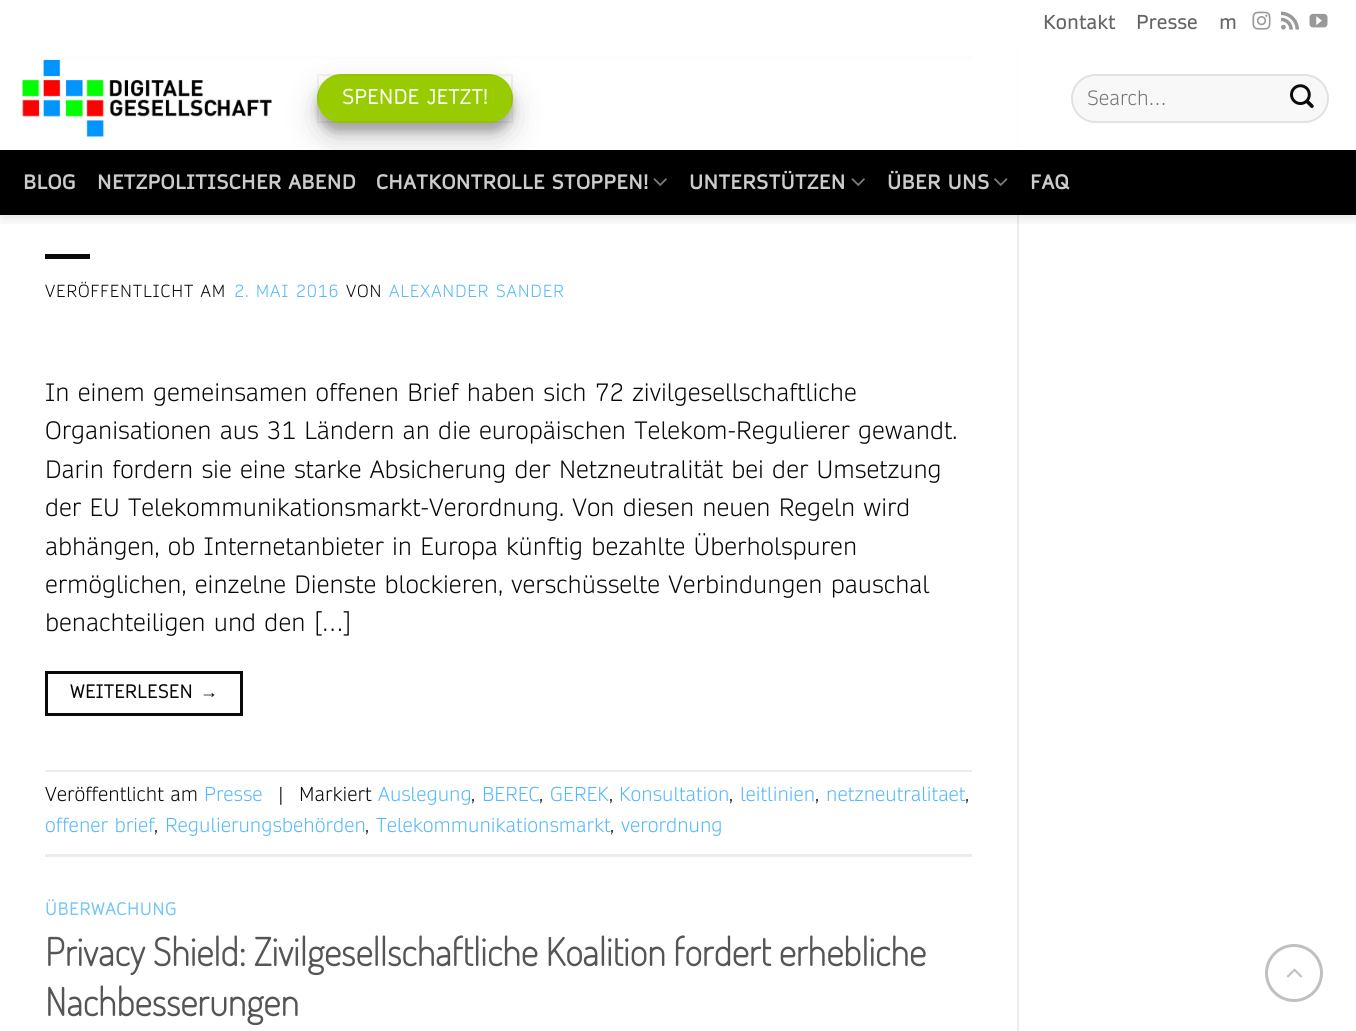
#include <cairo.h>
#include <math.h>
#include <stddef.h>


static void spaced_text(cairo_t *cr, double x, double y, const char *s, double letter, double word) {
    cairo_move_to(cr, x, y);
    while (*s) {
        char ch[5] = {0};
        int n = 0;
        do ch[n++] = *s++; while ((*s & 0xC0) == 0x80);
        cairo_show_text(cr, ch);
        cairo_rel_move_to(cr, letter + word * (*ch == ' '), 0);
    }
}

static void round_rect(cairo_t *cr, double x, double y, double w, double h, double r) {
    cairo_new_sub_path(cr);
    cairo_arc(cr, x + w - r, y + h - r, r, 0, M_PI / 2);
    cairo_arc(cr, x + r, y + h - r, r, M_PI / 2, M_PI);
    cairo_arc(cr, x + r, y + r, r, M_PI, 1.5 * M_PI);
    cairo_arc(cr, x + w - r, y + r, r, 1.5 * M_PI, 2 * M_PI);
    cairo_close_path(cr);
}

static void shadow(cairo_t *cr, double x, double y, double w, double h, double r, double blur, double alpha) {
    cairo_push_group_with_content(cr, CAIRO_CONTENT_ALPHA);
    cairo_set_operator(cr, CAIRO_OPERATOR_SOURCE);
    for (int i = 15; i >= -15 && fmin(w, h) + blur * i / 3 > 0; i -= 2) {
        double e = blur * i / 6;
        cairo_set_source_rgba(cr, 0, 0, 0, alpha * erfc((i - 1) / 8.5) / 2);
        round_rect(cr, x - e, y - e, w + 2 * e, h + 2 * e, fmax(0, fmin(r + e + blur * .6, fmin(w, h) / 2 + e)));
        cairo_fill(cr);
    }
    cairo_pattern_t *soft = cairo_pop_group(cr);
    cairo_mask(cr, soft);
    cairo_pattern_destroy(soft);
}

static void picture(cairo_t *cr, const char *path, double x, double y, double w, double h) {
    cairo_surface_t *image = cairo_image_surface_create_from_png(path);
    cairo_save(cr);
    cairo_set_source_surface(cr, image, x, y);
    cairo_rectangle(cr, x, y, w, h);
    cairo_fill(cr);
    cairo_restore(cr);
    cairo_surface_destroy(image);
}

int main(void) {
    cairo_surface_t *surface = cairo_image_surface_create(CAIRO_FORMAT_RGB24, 1356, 1031);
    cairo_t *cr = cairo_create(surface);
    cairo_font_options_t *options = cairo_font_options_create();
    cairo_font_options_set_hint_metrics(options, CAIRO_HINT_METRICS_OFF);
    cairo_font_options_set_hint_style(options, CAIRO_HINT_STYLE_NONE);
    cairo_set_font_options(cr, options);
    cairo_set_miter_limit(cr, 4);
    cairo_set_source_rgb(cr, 1, 1, 1);
    cairo_paint(cr);
    cairo_set_source_rgb(cr, 0.925, 0.925, 0.925);
    cairo_rectangle(cr, 45, 56, 927, 3);
    cairo_fill(cr);
    cairo_rectangle(cr, 1017, 45, 2, 986);
    cairo_fill(cr);
    cairo_save(cr);
    cairo_rectangle(cr, 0, 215, 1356, 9);
    cairo_clip(cr);
    cairo_set_source_rgb(cr, 0, 0, 0);
    shadow(cr, 2, 2, 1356, 214, 0, 7.5, 0.15);
    cairo_restore(cr);
    cairo_select_font_face(cr, "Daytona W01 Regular", CAIRO_FONT_SLANT_NORMAL, CAIRO_FONT_WEIGHT_NORMAL);
    cairo_set_font_size(cr, 19.25);
    cairo_set_source_rgb(cr, 0.396, 0.396, 0.396);
    cairo_move_to(cr, 1043, 29);
    cairo_show_text(cr, "Kontakt");
    cairo_move_to(cr, 1136, 29);
    cairo_show_text(cr, "Presse");
    cairo_move_to(cr, 1219, 29);
    cairo_show_text(cr, "m");
    picture(cr, "img1.png", 1252, 11, 19, 19);
    picture(cr, "img2.png", 1281, 11, 18, 19);
    picture(cr, "img3.png", 1309, 13, 19, 15);
    cairo_set_source_rgba(cr, 1, 1, 1, 0.9);
    cairo_rectangle(cr, 45, 45, 974, 105);
    cairo_fill(cr);
    picture(cr, "img4.png", 22, 59, 250, 78);
    cairo_set_source_rgb(cr, 0, 0, 0);
    shadow(cr, 317, 83, 196, 49, 24.5, 4.5, 0.22);
    cairo_set_source_rgb(cr, 0, 0, 0);
    cairo_rectangle(cr, 0, 150, 1356, 65);
    cairo_fill(cr);
    cairo_set_source_rgb(cr, 0, 0, 0);
    shadow(cr, 317, 89, 196, 49, 24.5, 15, 0.19);
    cairo_set_source_rgb(cr, 0.6, 0.8, 0);
    round_rect(cr, 317, 74, 196, 49, 24.5);
    cairo_fill(cr);
    cairo_rectangle(cr, 318, 75, 194, 47);
    cairo_set_source_rgba(cr, 0, 0, 0, 0.05);
    cairo_stroke(cr);
    cairo_select_font_face(cr, "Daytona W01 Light", CAIRO_FONT_SLANT_NORMAL, CAIRO_FONT_WEIGHT_BOLD);
    cairo_set_font_size(cr, 19.75);
    cairo_set_source_rgb(cr, 1, 1, 1);
    spaced_text(cr, 342, 104, "SPENDE JETZT!", 0.6, 0);
    cairo_set_source_rgb(cr, 0.969, 0.969, 0.969);
    round_rect(cr, 1071, 74, 258, 49, 24.5);
    cairo_fill(cr);
    round_rect(cr, 1072, 75, 256, 47, 23.5);
    cairo_set_source_rgba(cr, 0, 0, 0, 0.09);
    cairo_stroke(cr);
    cairo_select_font_face(cr, "Daytona W01 Light Light", CAIRO_FONT_SLANT_NORMAL, CAIRO_FONT_WEIGHT_NORMAL);
    cairo_set_source_rgb(cr, 0.459, 0.459, 0.459);
    cairo_move_to(cr, 1087, 105);
    cairo_show_text(cr, "Search…");
    picture(cr, "img5.png", 1290, 84, 24, 24);
    cairo_select_font_face(cr, "Daytona W01 Regular", CAIRO_FONT_SLANT_NORMAL, CAIRO_FONT_WEIGHT_BOLD);
    cairo_set_font_size(cr, 19.25);
    cairo_set_source_rgb(cr, 0.8, 0.8, 0.8);
    spaced_text(cr, 23, 189, "BLOG", 0.4, 0);
    spaced_text(cr, 97, 189, "NETZPOLITISCHER ABEND", 0.4, 0);
    spaced_text(cr, 376, 189, "CHATKONTROLLE STOPPEN!", 0.4, 0);
    picture(cr, "img6.png", 653, 178, 14, 8);
    spaced_text(cr, 689, 189, "UNTERSTÜTZEN", 0.4, 0);
    picture(cr, "img6.png", 851, 178, 14, 8);
    spaced_text(cr, 887, 189, "ÜBER UNS", 0.4, 0);
    picture(cr, "img7.png", 994, 178, 14, 8);
    spaced_text(cr, 1030, 189, "FAQ", 0.4, 0);
    cairo_set_source_rgb(cr, 0.039, 0.039, 0.039);
    cairo_rectangle(cr, 45, 254, 45, 5);
    cairo_fill(cr);
    cairo_select_font_face(cr, "Daytona W01 Light Light", CAIRO_FONT_SLANT_NORMAL, CAIRO_FONT_WEIGHT_NORMAL);
    cairo_set_font_size(cr, 16.75);
    spaced_text(cr, 45, 297, "VERÖFFENTLICHT AM", 0.8, 0);
    cairo_set_source_rgb(cr, 0.333, 0.722, 0.98);
    spaced_text(cr, 234, 297, "2. MAI 2016", 0.8, 0);
    cairo_set_source_rgb(cr, 0.039, 0.039, 0.039);
    spaced_text(cr, 346, 297, "VON", 0.8, 0);
    cairo_set_source_rgb(cr, 0.333, 0.722, 0.98);
    spaced_text(cr, 389, 297, "ALEXANDER SANDER", 0.8, 0);
    cairo_set_font_size(cr, 24);
    cairo_set_source_rgb(cr, 0.039, 0.039, 0.039);
    cairo_move_to(cr, 45, 401);
    cairo_show_text(cr, "In einem gemeinsamen offenen Brief haben sich 72 zivilgesellschaftliche");
    cairo_move_to(cr, 45, 439);
    cairo_show_text(cr, "Organisationen aus 31 Ländern an die europäischen Telekom-Regulierer gewandt.");
    cairo_move_to(cr, 45, 478);
    cairo_show_text(cr, "Darin fordern sie eine starke Absicherung der Netzneutralität bei der Umsetzung");
    cairo_move_to(cr, 45, 516);
    cairo_show_text(cr, "der EU Telekommunikationsmarkt-Verordnung. Von diesen neuen Regeln wird");
    cairo_move_to(cr, 45, 555);
    cairo_show_text(cr, "abhängen, ob Internetanbieter in Europa künftig bezahlte Überholspuren");
    cairo_move_to(cr, 45, 593);
    cairo_show_text(cr, "ermöglichen, einzelne Dienste blockieren, verschüsselte Verbindungen pauschal");
    cairo_move_to(cr, 45, 631);
    cairo_show_text(cr, "benachteiligen und den […]");
    cairo_rectangle(cr, 46.5, 672.5, 195, 42);
    cairo_set_line_width(cr, 3);
    cairo_stroke(cr);
    cairo_select_font_face(cr, "Daytona W01 Light", CAIRO_FONT_SLANT_NORMAL, CAIRO_FONT_WEIGHT_BOLD);
    cairo_set_font_size(cr, 18);
    spaced_text(cr, 70, 698, "WEITERLESEN", 0.5, 0);
    cairo_select_font_face(cr, "Liberation Serif", CAIRO_FONT_SLANT_NORMAL, CAIRO_FONT_WEIGHT_BOLD);
    spaced_text(cr, 200, 698, "→", 0.5, 0);
    cairo_set_source_rgb(cr, 0.925, 0.925, 0.925);
    cairo_rectangle(cr, 45, 770, 927, 2);
    cairo_fill(cr);
    cairo_rectangle(cr, 45, 854, 927, 3);
    cairo_fill(cr);
    cairo_select_font_face(cr, "Daytona W01 Light Light", CAIRO_FONT_SLANT_NORMAL, CAIRO_FONT_WEIGHT_NORMAL);
    cairo_set_font_size(cr, 19.25);
    cairo_set_source_rgb(cr, 0.039, 0.039, 0.039);
    cairo_move_to(cr, 45, 801);
    cairo_show_text(cr, "Veröffentlicht am");
    cairo_set_source_rgb(cr, 0.333, 0.722, 0.98);
    cairo_move_to(cr, 204, 801);
    cairo_show_text(cr, "Presse");
    cairo_set_source_rgb(cr, 0.039, 0.039, 0.039);
    cairo_move_to(cr, 276, 801);
    cairo_show_text(cr, "|");
    cairo_move_to(cr, 299, 801);
    cairo_show_text(cr, "Markiert");
    cairo_set_source_rgb(cr, 0.333, 0.722, 0.98);
    cairo_move_to(cr, 378, 801);
    cairo_show_text(cr, "Auslegung");
    cairo_set_source_rgb(cr, 0.039, 0.039, 0.039);
    cairo_move_to(cr, 471, 801);
    cairo_show_text(cr, ",");
    cairo_set_source_rgb(cr, 0.333, 0.722, 0.98);
    cairo_move_to(cr, 482, 801);
    cairo_show_text(cr, "BEREC");
    cairo_set_source_rgb(cr, 0.039, 0.039, 0.039);
    cairo_move_to(cr, 539, 801);
    cairo_show_text(cr, ",");
    cairo_set_source_rgb(cr, 0.333, 0.722, 0.98);
    cairo_move_to(cr, 550, 801);
    cairo_show_text(cr, "GEREK");
    cairo_set_source_rgb(cr, 0.039, 0.039, 0.039);
    cairo_move_to(cr, 609, 801);
    cairo_show_text(cr, ",");
    cairo_set_source_rgb(cr, 0.333, 0.722, 0.98);
    cairo_move_to(cr, 619, 801);
    cairo_show_text(cr, "Konsultation");
    cairo_set_source_rgb(cr, 0.039, 0.039, 0.039);
    cairo_move_to(cr, 729, 801);
    cairo_show_text(cr, ",");
    cairo_set_source_rgb(cr, 0.333, 0.722, 0.98);
    cairo_move_to(cr, 740, 801);
    cairo_show_text(cr, "leitlinien");
    cairo_set_source_rgb(cr, 0.039, 0.039, 0.039);
    cairo_move_to(cr, 815, 801);
    cairo_show_text(cr, ",");
    cairo_set_source_rgb(cr, 0.333, 0.722, 0.98);
    cairo_move_to(cr, 826, 801);
    cairo_show_text(cr, "netzneutralitaet");
    cairo_set_source_rgb(cr, 0.039, 0.039, 0.039);
    cairo_move_to(cr, 965, 801);
    cairo_show_text(cr, ",");
    cairo_set_source_rgb(cr, 0.333, 0.722, 0.98);
    cairo_move_to(cr, 45, 832);
    cairo_show_text(cr, "offener brief");
    cairo_set_source_rgb(cr, 0.039, 0.039, 0.039);
    cairo_move_to(cr, 154, 832);
    cairo_show_text(cr, ",");
    cairo_set_source_rgb(cr, 0.333, 0.722, 0.98);
    cairo_move_to(cr, 165, 832);
    cairo_show_text(cr, "Regulierungsbehörden");
    cairo_set_source_rgb(cr, 0.039, 0.039, 0.039);
    cairo_move_to(cr, 365, 832);
    cairo_show_text(cr, ",");
    cairo_set_source_rgb(cr, 0.333, 0.722, 0.98);
    cairo_move_to(cr, 376, 832);
    cairo_show_text(cr, "Telekommunikationsmarkt");
    cairo_set_source_rgb(cr, 0.039, 0.039, 0.039);
    cairo_move_to(cr, 610, 832);
    cairo_show_text(cr, ",");
    cairo_set_source_rgb(cr, 0.333, 0.722, 0.98);
    cairo_move_to(cr, 621, 832);
    cairo_show_text(cr, "verordnung");
    cairo_select_font_face(cr, "Daytona W01 Light", CAIRO_FONT_SLANT_NORMAL, CAIRO_FONT_WEIGHT_BOLD);
    cairo_set_font_size(cr, 16.75);
    cairo_set_source_rgb(cr, 0.467, 0.776, 0.984);
    spaced_text(cr, 45, 915, "ÜBERWACHUNG", 0.8, 0);
    cairo_select_font_face(cr, "Dosis", CAIRO_FONT_SLANT_NORMAL, CAIRO_FONT_WEIGHT_BOLD);
    cairo_set_font_size(cr, 38.4);
    cairo_set_source_rgb(cr, 0.333, 0.333, 0.333);
    cairo_move_to(cr, 45, 966);
    cairo_show_text(cr, "Privacy Shield: Zivilgesellschaftliche Koalition fordert erhebliche");
    cairo_move_to(cr, 45, 1016);
    cairo_show_text(cr, "Nachbesserungen");
    cairo_new_path(cr);
    cairo_arc(cr, 1294, 973, 27.5, 0, 2 * M_PI);
    cairo_set_source_rgb(cr, 0.753, 0.753, 0.753);
    cairo_stroke(cr);
    picture(cr, "img8.png", 1286, 968, 17, 10);
    cairo_surface_write_to_png(surface, "page.png");
    cairo_font_options_destroy(options);
    cairo_destroy(cr);
    cairo_surface_destroy(surface);
    return 0;
}
